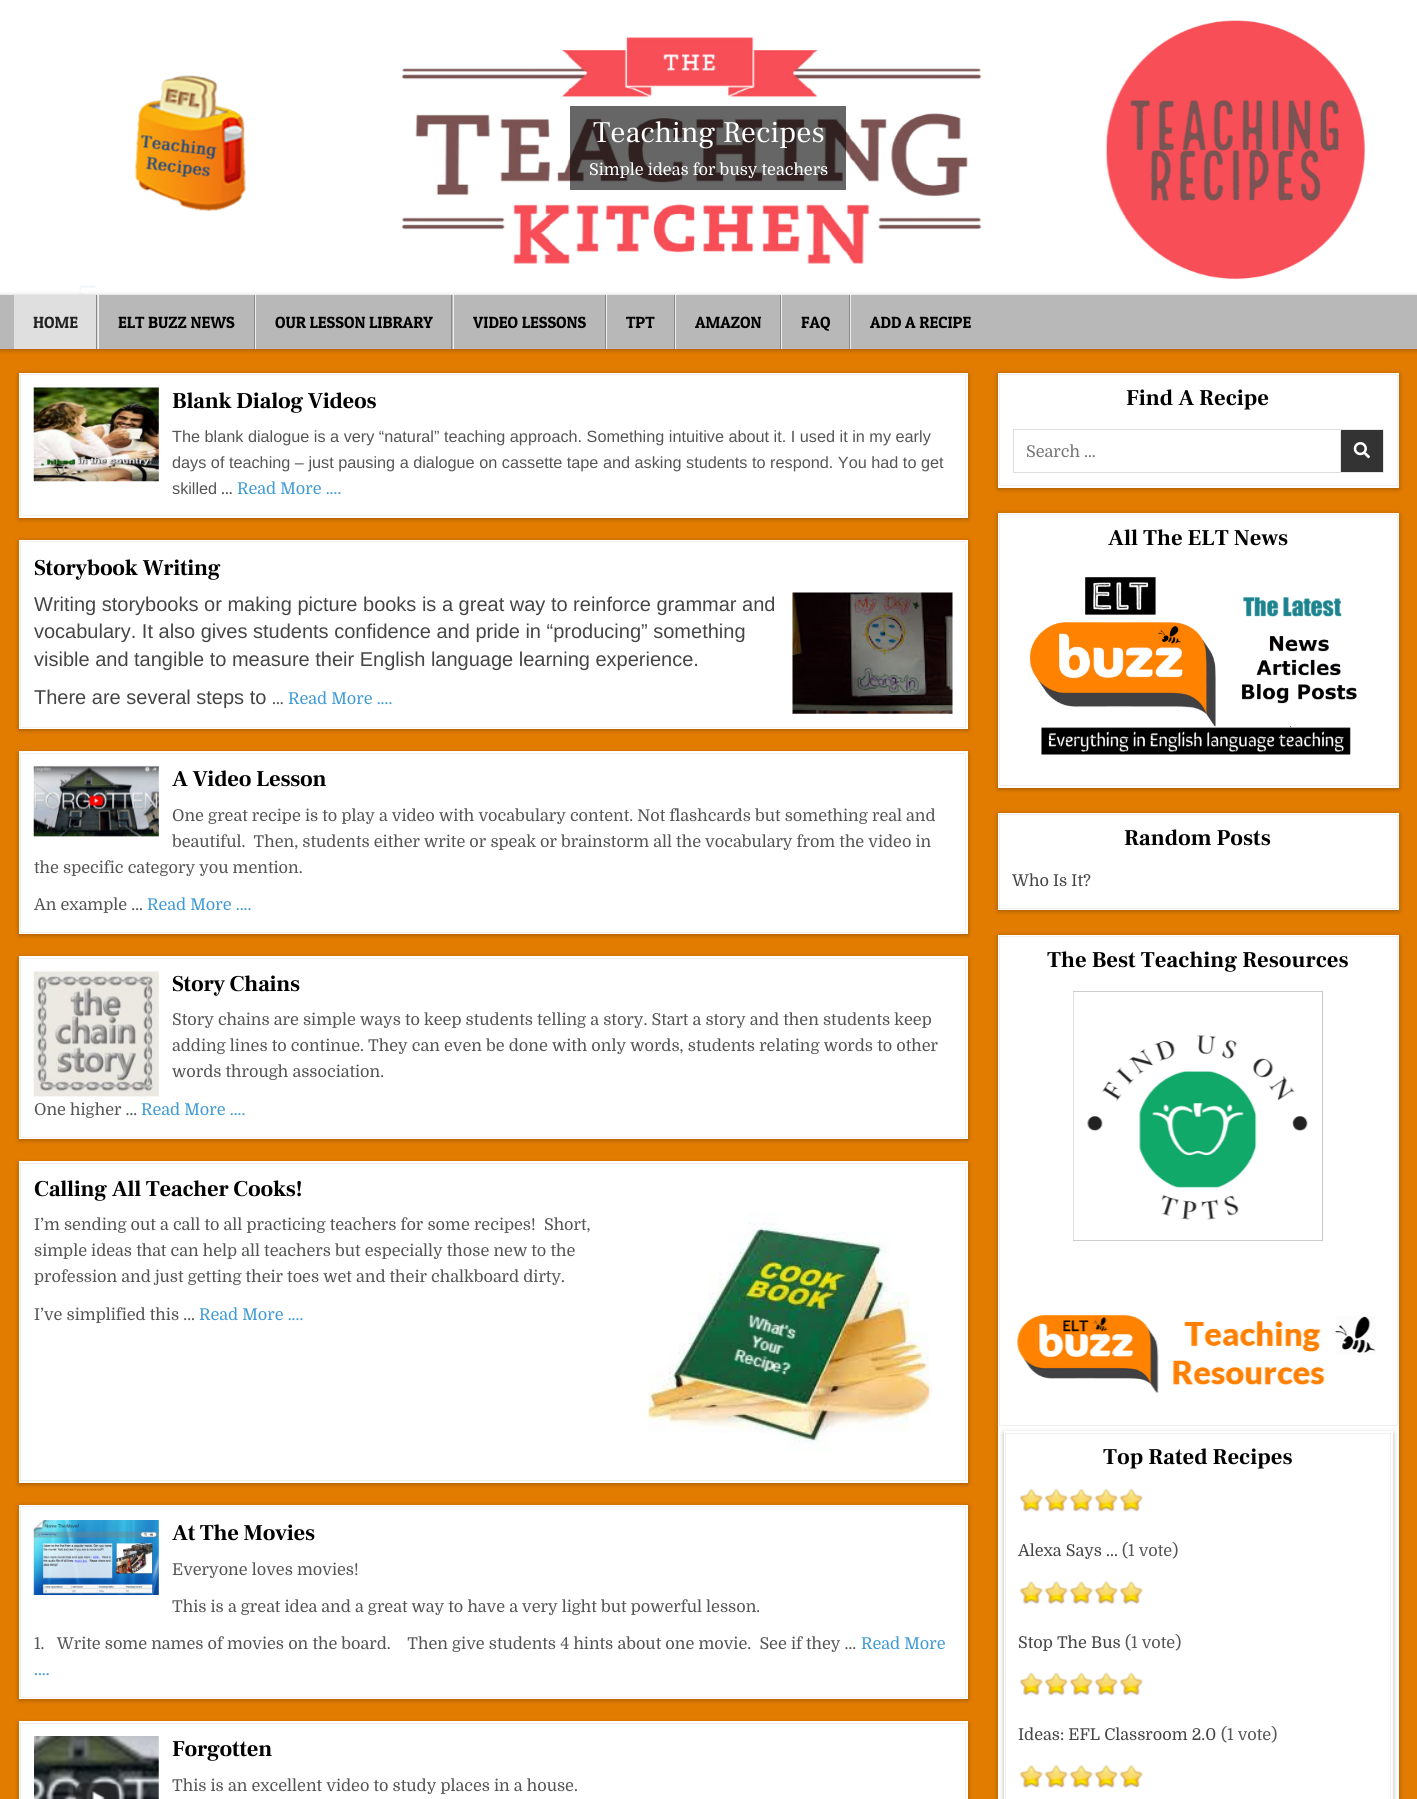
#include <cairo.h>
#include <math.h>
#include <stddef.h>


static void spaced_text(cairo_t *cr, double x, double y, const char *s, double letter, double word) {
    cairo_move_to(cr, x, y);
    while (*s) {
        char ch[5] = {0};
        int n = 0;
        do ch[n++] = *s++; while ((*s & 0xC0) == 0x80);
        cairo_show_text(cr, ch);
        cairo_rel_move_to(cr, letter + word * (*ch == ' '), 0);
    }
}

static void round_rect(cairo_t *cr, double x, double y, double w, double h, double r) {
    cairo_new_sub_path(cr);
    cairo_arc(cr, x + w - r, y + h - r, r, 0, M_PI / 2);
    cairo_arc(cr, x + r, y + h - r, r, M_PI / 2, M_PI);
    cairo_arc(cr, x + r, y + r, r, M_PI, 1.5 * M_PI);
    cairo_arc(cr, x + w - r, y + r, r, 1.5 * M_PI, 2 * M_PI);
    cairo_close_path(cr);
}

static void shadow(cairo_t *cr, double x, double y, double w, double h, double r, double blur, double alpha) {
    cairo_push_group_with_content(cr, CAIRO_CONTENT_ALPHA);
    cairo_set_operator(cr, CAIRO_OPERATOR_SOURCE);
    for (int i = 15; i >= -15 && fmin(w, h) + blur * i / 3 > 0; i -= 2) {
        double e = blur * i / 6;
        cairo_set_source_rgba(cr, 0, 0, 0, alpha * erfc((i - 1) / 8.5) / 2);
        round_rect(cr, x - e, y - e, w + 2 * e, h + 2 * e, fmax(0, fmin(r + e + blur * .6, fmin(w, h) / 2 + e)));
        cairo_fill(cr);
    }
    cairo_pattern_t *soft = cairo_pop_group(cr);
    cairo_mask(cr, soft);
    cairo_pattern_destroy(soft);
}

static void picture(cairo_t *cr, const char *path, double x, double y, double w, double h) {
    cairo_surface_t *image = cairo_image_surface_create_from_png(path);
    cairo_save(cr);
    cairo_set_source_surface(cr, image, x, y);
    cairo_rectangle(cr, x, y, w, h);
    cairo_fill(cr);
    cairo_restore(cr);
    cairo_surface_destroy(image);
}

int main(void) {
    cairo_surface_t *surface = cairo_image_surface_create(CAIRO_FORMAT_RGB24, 1417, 1799);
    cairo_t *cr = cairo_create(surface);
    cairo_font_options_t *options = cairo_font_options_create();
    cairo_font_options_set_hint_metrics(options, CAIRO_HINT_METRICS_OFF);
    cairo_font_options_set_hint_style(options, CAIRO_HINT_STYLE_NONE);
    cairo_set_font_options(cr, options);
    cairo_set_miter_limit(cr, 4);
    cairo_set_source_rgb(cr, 0.886, 0.486, 0);
    cairo_paint(cr);
    picture(cr, "img1.png", 0, 0, 1417, 295);
    cairo_set_source_rgba(cr, 0, 0, 0, 0.6);
    cairo_rectangle(cr, 570, 106, 276, 84);
    cairo_fill(cr);
    cairo_select_font_face(cr, "Frank Ruhl Libre", CAIRO_FONT_SLANT_NORMAL, CAIRO_FONT_WEIGHT_NORMAL);
    cairo_set_font_size(cr, 30);
    cairo_set_source_rgb(cr, 1, 1, 1);
    cairo_move_to(cr, 593, 142);
    cairo_show_text(cr, "Teaching Recipes");
    cairo_select_font_face(cr, "Domine", CAIRO_FONT_SLANT_NORMAL, CAIRO_FONT_WEIGHT_NORMAL);
    cairo_set_font_size(cr, 16.25);
    cairo_move_to(cr, 589, 175);
    cairo_show_text(cr, "Simple ideas for busy teachers");
    cairo_set_source_rgb(cr, 0, 0, 0);
    shadow(cr, 0, 296, 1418, 54, 0, 2.5, 0.3);
    cairo_set_source_rgb(cr, 0.722, 0.722, 0.722);
    cairo_rectangle(cr, 0, 295, 1417, 54);
    cairo_fill(cr);
    cairo_set_source_rgb(cr, 0.875, 0.875, 0.875);
    cairo_rectangle(cr, 14, 295, 84, 54);
    cairo_fill(cr);
    cairo_set_source_rgb(cr, 0.533, 0.533, 0.533);
    cairo_rectangle(cr, 96, 295, 1, 54);
    cairo_fill(cr);
    cairo_select_font_face(cr, "Patua One", CAIRO_FONT_SLANT_NORMAL, CAIRO_FONT_WEIGHT_NORMAL);
    cairo_set_source_rgb(cr, 0.133, 0.133, 0.133);
    cairo_move_to(cr, 33, 328);
    cairo_show_text(cr, "HOME");
    cairo_set_source_rgb(cr, 0.533, 0.533, 0.533);
    cairo_rectangle(cr, 254, 295, 1, 54);
    cairo_fill(cr);
    cairo_set_source_rgb(cr, 0.933, 0.933, 0.933);
    cairo_rectangle(cr, 98, 295, 1, 54);
    cairo_fill(cr);
    cairo_set_source_rgb(cr, 0, 0, 0);
    cairo_move_to(cr, 118, 328);
    cairo_show_text(cr, "ELT BUZZ NEWS");
    cairo_set_source_rgb(cr, 0.533, 0.533, 0.533);
    cairo_rectangle(cr, 451, 295, 1, 54);
    cairo_fill(cr);
    cairo_set_source_rgb(cr, 0.933, 0.933, 0.933);
    cairo_rectangle(cr, 255, 295, 1, 54);
    cairo_fill(cr);
    cairo_set_source_rgb(cr, 0, 0, 0);
    cairo_move_to(cr, 275, 328);
    cairo_show_text(cr, "OUR LESSON LIBRARY");
    cairo_set_source_rgb(cr, 0.533, 0.533, 0.533);
    cairo_rectangle(cr, 605, 295, 1, 54);
    cairo_fill(cr);
    cairo_set_source_rgb(cr, 0.933, 0.933, 0.933);
    cairo_rectangle(cr, 453, 295, 1, 54);
    cairo_fill(cr);
    cairo_set_source_rgb(cr, 0, 0, 0);
    cairo_move_to(cr, 473, 328);
    cairo_show_text(cr, "VIDEO LESSONS");
    cairo_set_source_rgb(cr, 0.533, 0.533, 0.533);
    cairo_rectangle(cr, 674, 295, 1, 54);
    cairo_fill(cr);
    cairo_set_source_rgb(cr, 0.933, 0.933, 0.933);
    cairo_rectangle(cr, 606, 295, 1, 54);
    cairo_fill(cr);
    cairo_set_source_rgb(cr, 0, 0, 0);
    cairo_move_to(cr, 626, 328);
    cairo_show_text(cr, "TPT");
    cairo_set_source_rgb(cr, 0.533, 0.533, 0.533);
    cairo_rectangle(cr, 780, 295, 1, 54);
    cairo_fill(cr);
    cairo_set_source_rgb(cr, 0.933, 0.933, 0.933);
    cairo_rectangle(cr, 675, 295, 1, 54);
    cairo_fill(cr);
    cairo_set_source_rgb(cr, 0, 0, 0);
    cairo_move_to(cr, 695, 328);
    cairo_show_text(cr, "AMAZON");
    cairo_set_source_rgb(cr, 0.533, 0.533, 0.533);
    cairo_rectangle(cr, 849, 295, 1, 54);
    cairo_fill(cr);
    cairo_set_source_rgb(cr, 0.933, 0.933, 0.933);
    cairo_rectangle(cr, 781, 295, 1, 54);
    cairo_fill(cr);
    cairo_set_source_rgb(cr, 0, 0, 0);
    cairo_move_to(cr, 801, 328);
    cairo_show_text(cr, "FAQ");
    cairo_set_source_rgb(cr, 0.933, 0.933, 0.933);
    cairo_rectangle(cr, 850, 295, 1, 54);
    cairo_fill(cr);
    cairo_set_source_rgb(cr, 0, 0, 0);
    cairo_move_to(cr, 870, 328);
    cairo_show_text(cr, "ADD A RECIPE");
    cairo_set_source_rgb(cr, 0, 0, 0);
    shadow(cr, 19, 374, 949, 145, 0, 2.5, 0.3);
    cairo_set_source_rgb(cr, 1, 1, 1);
    cairo_rectangle(cr, 19, 373, 949, 145);
    cairo_fill(cr);
    cairo_rectangle(cr, 20.5, 374.5, 945, 141);
    cairo_set_source_rgb(cr, 0.937, 0.937, 0.937);
    cairo_set_line_width(cr, 1);
    cairo_stroke(cr);
    picture(cr, "img2.png", 33, 387, 126, 95);
    cairo_select_font_face(cr, "Frank Ruhl Libre", CAIRO_FONT_SLANT_NORMAL, CAIRO_FONT_WEIGHT_BOLD);
    cairo_set_font_size(cr, 22.5);
    cairo_set_source_rgb(cr, 0, 0, 0);
    spaced_text(cr, 172, 408, "Blank Dialog Videos", -0.25, 0);
    cairo_select_font_face(cr, "Liberation Sans", CAIRO_FONT_SLANT_NORMAL, CAIRO_FONT_WEIGHT_NORMAL);
    cairo_set_font_size(cr, 16.25);
    cairo_set_source_rgb(cr, 0.333, 0.333, 0.333);
    cairo_move_to(cr, 172, 442);
    cairo_show_text(cr, "The blank dialogue is a very “natural” teaching approach. Something intuitive about it. I used it in my early");
    cairo_move_to(cr, 172, 468);
    cairo_show_text(cr, "days of teaching – just pausing a dialogue on cassette tape and asking students to respond. You had to get");
    cairo_move_to(cr, 172, 494);
    cairo_show_text(cr, "skilled");
    cairo_select_font_face(cr, "Domine", CAIRO_FONT_SLANT_NORMAL, CAIRO_FONT_WEIGHT_NORMAL);
    cairo_move_to(cr, 221, 494);
    cairo_show_text(cr, "…");
    cairo_set_source_rgb(cr, 0.251, 0.608, 0.831);
    cairo_move_to(cr, 237, 494);
    cairo_show_text(cr, "Read More ....");
    cairo_set_source_rgb(cr, 0, 0, 0);
    shadow(cr, 19, 541, 949, 189, 0, 2.5, 0.3);
    cairo_set_source_rgb(cr, 1, 1, 1);
    cairo_rectangle(cr, 19, 540, 949, 189);
    cairo_fill(cr);
    cairo_rectangle(cr, 20.5, 541.5, 945, 186);
    cairo_set_source_rgb(cr, 0.937, 0.937, 0.937);
    cairo_stroke(cr);
    cairo_select_font_face(cr, "Frank Ruhl Libre", CAIRO_FONT_SLANT_NORMAL, CAIRO_FONT_WEIGHT_BOLD);
    cairo_set_font_size(cr, 22.5);
    cairo_set_source_rgb(cr, 0, 0, 0);
    spaced_text(cr, 34, 575, "Storybook Writing", -0.25, 0);
    cairo_select_font_face(cr, "Liberation Sans", CAIRO_FONT_SLANT_NORMAL, CAIRO_FONT_WEIGHT_NORMAL);
    cairo_set_font_size(cr, 20);
    cairo_set_source_rgb(cr, 0.271, 0.271, 0.271);
    cairo_move_to(cr, 34, 611);
    cairo_show_text(cr, "Writing storybooks or making picture books is a great way to reinforce grammar and");
    picture(cr, "img3.png", 792, 592, 161, 122);
    cairo_move_to(cr, 34, 638);
    cairo_show_text(cr, "vocabulary. It also gives students confidence and pride in “producing” something");
    cairo_move_to(cr, 34, 666);
    cairo_show_text(cr, "visible and tangible to measure their English language learning experience.");
    cairo_move_to(cr, 34, 704);
    cairo_show_text(cr, "There are several steps to");
    cairo_select_font_face(cr, "Domine", CAIRO_FONT_SLANT_NORMAL, CAIRO_FONT_WEIGHT_NORMAL);
    cairo_set_font_size(cr, 16.25);
    cairo_set_source_rgb(cr, 0.333, 0.333, 0.333);
    cairo_move_to(cr, 272, 704);
    cairo_show_text(cr, "…");
    cairo_set_source_rgb(cr, 0.251, 0.608, 0.831);
    cairo_move_to(cr, 288, 704);
    cairo_show_text(cr, "Read More ....");
    cairo_set_source_rgb(cr, 0, 0, 0);
    shadow(cr, 19, 753, 949, 182, 0, 2.5, 0.3);
    cairo_set_source_rgb(cr, 1, 1, 1);
    cairo_rectangle(cr, 19, 751, 949, 183);
    cairo_fill(cr);
    cairo_rectangle(cr, 20.5, 753.5, 945, 179);
    cairo_set_source_rgb(cr, 0.937, 0.937, 0.937);
    cairo_stroke(cr);
    picture(cr, "img4.png", 33, 765, 126, 72);
    cairo_select_font_face(cr, "Frank Ruhl Libre", CAIRO_FONT_SLANT_NORMAL, CAIRO_FONT_WEIGHT_BOLD);
    cairo_set_font_size(cr, 22.5);
    cairo_set_source_rgb(cr, 0, 0, 0);
    spaced_text(cr, 172, 786, "A Video Lesson", -0.25, 0);
    cairo_select_font_face(cr, "Domine", CAIRO_FONT_SLANT_NORMAL, CAIRO_FONT_WEIGHT_NORMAL);
    cairo_set_font_size(cr, 16.25);
    cairo_set_source_rgb(cr, 0.333, 0.333, 0.333);
    cairo_move_to(cr, 172, 821);
    cairo_show_text(cr, "One great recipe is to play a video with vocabulary content. Not flashcards but something real and");
    cairo_move_to(cr, 172, 847);
    cairo_show_text(cr, "beautiful.  Then, students either write or speak or brainstorm all the vocabulary from the video in");
    cairo_move_to(cr, 34, 873);
    cairo_show_text(cr, "the specific category you mention.");
    cairo_move_to(cr, 34, 910);
    cairo_show_text(cr, "An example …");
    cairo_set_source_rgb(cr, 0.251, 0.608, 0.831);
    cairo_move_to(cr, 147, 910);
    cairo_show_text(cr, "Read More ....");
    cairo_set_source_rgb(cr, 0, 0, 0);
    shadow(cr, 19, 958, 949, 182, 0, 2.5, 0.3);
    cairo_set_source_rgb(cr, 1, 1, 1);
    cairo_rectangle(cr, 19, 956, 949, 183);
    cairo_fill(cr);
    cairo_rectangle(cr, 20.5, 958.5, 945, 179);
    cairo_set_source_rgb(cr, 0.937, 0.937, 0.937);
    cairo_stroke(cr);
    picture(cr, "img5.png", 33, 971, 126, 126);
    cairo_select_font_face(cr, "Frank Ruhl Libre", CAIRO_FONT_SLANT_NORMAL, CAIRO_FONT_WEIGHT_BOLD);
    cairo_set_font_size(cr, 22.5);
    cairo_set_source_rgb(cr, 0, 0, 0);
    spaced_text(cr, 172, 991, "Story Chains", -0.25, 0);
    cairo_select_font_face(cr, "Domine", CAIRO_FONT_SLANT_NORMAL, CAIRO_FONT_WEIGHT_NORMAL);
    cairo_set_font_size(cr, 16.25);
    cairo_set_source_rgb(cr, 0.333, 0.333, 0.333);
    cairo_move_to(cr, 172, 1025);
    cairo_show_text(cr, "Story chains are simple ways to keep students telling a story. Start a story and then students keep");
    cairo_move_to(cr, 172, 1051);
    cairo_show_text(cr, "adding lines to continue. They can even be done with only words, students relating words to other");
    cairo_move_to(cr, 172, 1077);
    cairo_show_text(cr, "words through association.");
    cairo_move_to(cr, 34, 1115);
    cairo_show_text(cr, "One higher …");
    cairo_set_source_rgb(cr, 0.251, 0.608, 0.831);
    cairo_move_to(cr, 141, 1115);
    cairo_show_text(cr, "Read More ....");
    cairo_set_source_rgb(cr, 0, 0, 0);
    shadow(cr, 19, 1163, 949, 321, 0, 2.5, 0.3);
    cairo_set_source_rgb(cr, 1, 1, 1);
    cairo_rectangle(cr, 19, 1161, 949, 322);
    cairo_fill(cr);
    cairo_rectangle(cr, 20.5, 1163.5, 945, 317);
    cairo_set_source_rgb(cr, 0.937, 0.937, 0.937);
    cairo_stroke(cr);
    cairo_select_font_face(cr, "Frank Ruhl Libre", CAIRO_FONT_SLANT_NORMAL, CAIRO_FONT_WEIGHT_BOLD);
    cairo_set_font_size(cr, 22.5);
    cairo_set_source_rgb(cr, 0, 0, 0);
    spaced_text(cr, 34, 1196, "Calling All Teacher Cooks!", -0.25, 0);
    cairo_select_font_face(cr, "Domine", CAIRO_FONT_SLANT_NORMAL, CAIRO_FONT_WEIGHT_NORMAL);
    cairo_set_font_size(cr, 16.25);
    cairo_set_source_rgb(cr, 0.333, 0.333, 0.333);
    cairo_move_to(cr, 34, 1230);
    cairo_show_text(cr, "I’m sending out a call to all practicing teachers for some recipes!  Short,");
    picture(cr, "img6.png", 647, 1212, 286, 240);
    cairo_move_to(cr, 34, 1256);
    cairo_show_text(cr, "simple ideas that can help all teachers but especially those new to the");
    cairo_move_to(cr, 34, 1282);
    cairo_show_text(cr, "profession and just getting their toes wet and their chalkboard dirty.");
    cairo_move_to(cr, 34, 1320);
    cairo_show_text(cr, "I’ve simplified this …");
    cairo_set_source_rgb(cr, 0.251, 0.608, 0.831);
    cairo_move_to(cr, 199, 1320);
    cairo_show_text(cr, "Read More ....");
    cairo_set_source_rgb(cr, 0, 0, 0);
    shadow(cr, 19, 1506, 949, 194, 0, 2.5, 0.3);
    cairo_set_source_rgb(cr, 1, 1, 1);
    cairo_rectangle(cr, 19, 1505, 949, 194);
    cairo_fill(cr);
    cairo_rectangle(cr, 20.5, 1506.5, 945, 191);
    cairo_set_source_rgb(cr, 0.937, 0.937, 0.937);
    cairo_stroke(cr);
    picture(cr, "img7.png", 33, 1520, 126, 75);
    cairo_select_font_face(cr, "Frank Ruhl Libre", CAIRO_FONT_SLANT_NORMAL, CAIRO_FONT_WEIGHT_BOLD);
    cairo_set_font_size(cr, 22.5);
    cairo_set_source_rgb(cr, 0, 0, 0);
    spaced_text(cr, 172, 1540, "At The Movies", -0.25, 0);
    cairo_select_font_face(cr, "Domine", CAIRO_FONT_SLANT_NORMAL, CAIRO_FONT_WEIGHT_NORMAL);
    cairo_set_font_size(cr, 16.25);
    cairo_set_source_rgb(cr, 0.333, 0.333, 0.333);
    cairo_move_to(cr, 172, 1575);
    cairo_show_text(cr, "Everyone loves movies!");
    cairo_move_to(cr, 172, 1612);
    cairo_show_text(cr, "This is a great idea and a great way to have a very light but powerful lesson.");
    cairo_move_to(cr, 34, 1649);
    cairo_show_text(cr, "1.   Write some names of movies on the board.    Then give students 4 hints about one movie.  See if they …");
    cairo_set_source_rgb(cr, 0.251, 0.608, 0.831);
    cairo_move_to(cr, 861, 1649);
    cairo_show_text(cr, "Read More");
    cairo_move_to(cr, 34, 1675);
    cairo_show_text(cr, "....");
    cairo_set_source_rgb(cr, 0, 0, 0);
    shadow(cr, 19, 1723, 949, 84, 0, 2.5, 0.3);
    cairo_set_source_rgb(cr, 1, 1, 1);
    cairo_rectangle(cr, 19, 1721, 949, 78);
    cairo_fill(cr);
    cairo_rectangle(cr, 20.5, 1723.5, 945, 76);
    cairo_set_source_rgb(cr, 0.937, 0.937, 0.937);
    cairo_stroke(cr);
    picture(cr, "img8.png", 34, 1736, 125, 63);
    cairo_select_font_face(cr, "Frank Ruhl Libre", CAIRO_FONT_SLANT_NORMAL, CAIRO_FONT_WEIGHT_BOLD);
    cairo_set_font_size(cr, 22.5);
    cairo_set_source_rgb(cr, 0, 0, 0);
    spaced_text(cr, 172, 1756, "Forgotten", -0.25, 0);
    cairo_select_font_face(cr, "Domine", CAIRO_FONT_SLANT_NORMAL, CAIRO_FONT_WEIGHT_NORMAL);
    cairo_set_font_size(cr, 16.25);
    cairo_set_source_rgb(cr, 0.333, 0.333, 0.333);
    cairo_move_to(cr, 172, 1791);
    cairo_show_text(cr, "This is an excellent video to study places in a house.");
    cairo_set_source_rgb(cr, 0, 0, 0);
    shadow(cr, 998, 374, 401, 115, 0, 2.5, 0.3);
    cairo_set_source_rgb(cr, 1, 1, 1);
    cairo_rectangle(cr, 998, 373, 401, 115);
    cairo_fill(cr);
    cairo_rectangle(cr, 999.5, 374.5, 398, 111);
    cairo_set_source_rgb(cr, 0.937, 0.937, 0.937);
    cairo_stroke(cr);
    cairo_select_font_face(cr, "Frank Ruhl Libre", CAIRO_FONT_SLANT_NORMAL, CAIRO_FONT_WEIGHT_BOLD);
    cairo_set_font_size(cr, 22.5);
    cairo_set_source_rgb(cr, 0, 0, 0);
    cairo_move_to(cr, 1126, 405);
    cairo_show_text(cr, "Find A Recipe");
    cairo_rectangle(cr, 1013.5, 429.5, 370, 43);
    cairo_set_source_rgb(cr, 0.867, 0.867, 0.867);
    cairo_stroke(cr);
    cairo_select_font_face(cr, "Domine", CAIRO_FONT_SLANT_NORMAL, CAIRO_FONT_WEIGHT_NORMAL);
    cairo_set_font_size(cr, 16.25);
    cairo_set_source_rgb(cr, 0.459, 0.459, 0.459);
    cairo_move_to(cr, 1026, 457);
    cairo_show_text(cr, "Search …");
    cairo_set_source_rgb(cr, 0.2, 0.2, 0.2);
    cairo_rectangle(cr, 1340.5, 429.5, 43, 43);
    cairo_fill_preserve(cr);
    cairo_set_source_rgb(cr, 0.902, 0.902, 0.902);
    cairo_stroke(cr);
    picture(cr, "img9.png", 1353, 442, 17, 17);
    cairo_set_source_rgb(cr, 0, 0, 0);
    shadow(cr, 998, 514, 401, 275, 0, 2.5, 0.3);
    cairo_set_source_rgb(cr, 1, 1, 1);
    cairo_rectangle(cr, 998, 513, 401, 275);
    cairo_fill(cr);
    cairo_rectangle(cr, 999.5, 514.5, 398, 271);
    cairo_set_source_rgb(cr, 0.937, 0.937, 0.937);
    cairo_stroke(cr);
    cairo_select_font_face(cr, "Frank Ruhl Libre", CAIRO_FONT_SLANT_NORMAL, CAIRO_FONT_WEIGHT_BOLD);
    cairo_set_font_size(cr, 22.5);
    cairo_set_source_rgb(cr, 0, 0, 0);
    cairo_move_to(cr, 1108, 545);
    cairo_show_text(cr, "All The ELT News");
    picture(cr, "img10.png", 1030, 577, 327, 178);
    cairo_set_source_rgb(cr, 0, 0, 0);
    shadow(cr, 998, 814, 401, 97, 0, 2.5, 0.3);
    cairo_set_source_rgb(cr, 1, 1, 1);
    cairo_rectangle(cr, 998, 813, 401, 97);
    cairo_fill(cr);
    cairo_rectangle(cr, 999.5, 814.5, 398, 94);
    cairo_set_source_rgb(cr, 0.937, 0.937, 0.937);
    cairo_stroke(cr);
    cairo_set_source_rgb(cr, 0, 0, 0);
    cairo_move_to(cr, 1124, 845);
    cairo_show_text(cr, "Random Posts");
    cairo_select_font_face(cr, "Domine", CAIRO_FONT_SLANT_NORMAL, CAIRO_FONT_WEIGHT_NORMAL);
    cairo_set_font_size(cr, 16.25);
    cairo_set_source_rgb(cr, 0.271, 0.271, 0.271);
    cairo_move_to(cr, 1012, 886);
    cairo_show_text(cr, "Who Is It?");
    cairo_set_source_rgb(cr, 0, 0, 0);
    shadow(cr, 998, 936, 401, 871, 0, 2.5, 0.3);
    cairo_set_source_rgb(cr, 1, 1, 1);
    cairo_rectangle(cr, 998, 935, 401, 864);
    cairo_fill(cr);
    cairo_rectangle(cr, 999.5, 936.5, 398, 489);
    cairo_set_source_rgb(cr, 0.937, 0.937, 0.937);
    cairo_stroke(cr);
    cairo_select_font_face(cr, "Frank Ruhl Libre", CAIRO_FONT_SLANT_NORMAL, CAIRO_FONT_WEIGHT_BOLD);
    cairo_set_font_size(cr, 22.5);
    cairo_set_source_rgb(cr, 0, 0, 0);
    cairo_move_to(cr, 1047, 967);
    cairo_show_text(cr, "The Best Teaching Resources");
    cairo_rectangle(cr, 1073.5, 991.5, 249, 249);
    cairo_set_source_rgb(cr, 0.8, 0.8, 0.8);
    cairo_stroke(cr);
    picture(cr, "img11.png", 1073, 992, 235, 248);
    picture(cr, "img12.png", 1017, 1314, 359, 79);
    cairo_set_source_rgb(cr, 0, 0, 0);
    shadow(cr, 1004, 1433, 389, 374, 0, 2.5, 0.3);
    cairo_set_source_rgb(cr, 1, 1, 1);
    cairo_rectangle(cr, 1004, 1431, 389, 368);
    cairo_fill(cr);
    cairo_rectangle(cr, 1005.5, 1433.5, 385, 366);
    cairo_set_source_rgb(cr, 0.937, 0.937, 0.937);
    cairo_stroke(cr);
    cairo_set_source_rgb(cr, 0, 0, 0);
    cairo_move_to(cr, 1103, 1464);
    cairo_show_text(cr, "Top Rated Recipes");
    picture(cr, "img13.png", 1020, 1488, 123, 23);
    picture(cr, "img14.png", 1019, 1489, 124, 23);
    cairo_select_font_face(cr, "Domine", CAIRO_FONT_SLANT_NORMAL, CAIRO_FONT_WEIGHT_NORMAL);
    cairo_set_font_size(cr, 16.25);
    cairo_set_source_rgb(cr, 0.271, 0.271, 0.271);
    cairo_move_to(cr, 1018, 1556);
    cairo_show_text(cr, "Alexa Says ...");
    cairo_set_source_rgb(cr, 0.333, 0.333, 0.333);
    cairo_move_to(cr, 1122, 1556);
    cairo_show_text(cr, "(1 vote)");
    picture(cr, "img15.png", 1020, 1581, 123, 23);
    picture(cr, "img16.png", 1019, 1581, 124, 24);
    cairo_set_source_rgb(cr, 0.271, 0.271, 0.271);
    cairo_move_to(cr, 1018, 1648);
    cairo_show_text(cr, "Stop The Bus");
    cairo_set_source_rgb(cr, 0.333, 0.333, 0.333);
    cairo_move_to(cr, 1125, 1648);
    cairo_show_text(cr, "(1 vote)");
    picture(cr, "img17.png", 1020, 1672, 123, 23);
    picture(cr, "img18.png", 1019, 1673, 124, 23);
    cairo_set_source_rgb(cr, 0.271, 0.271, 0.271);
    cairo_move_to(cr, 1018, 1740);
    cairo_show_text(cr, "Ideas: EFL Classroom 2.0");
    cairo_set_source_rgb(cr, 0.333, 0.333, 0.333);
    cairo_move_to(cr, 1221, 1740);
    cairo_show_text(cr, "(1 vote)");
    picture(cr, "img19.png", 1020, 1765, 123, 23);
    picture(cr, "img20.png", 1019, 1765, 124, 23);
    cairo_surface_write_to_png(surface, "page.png");
    cairo_font_options_destroy(options);
    cairo_destroy(cr);
    cairo_surface_destroy(surface);
    return 0;
}
